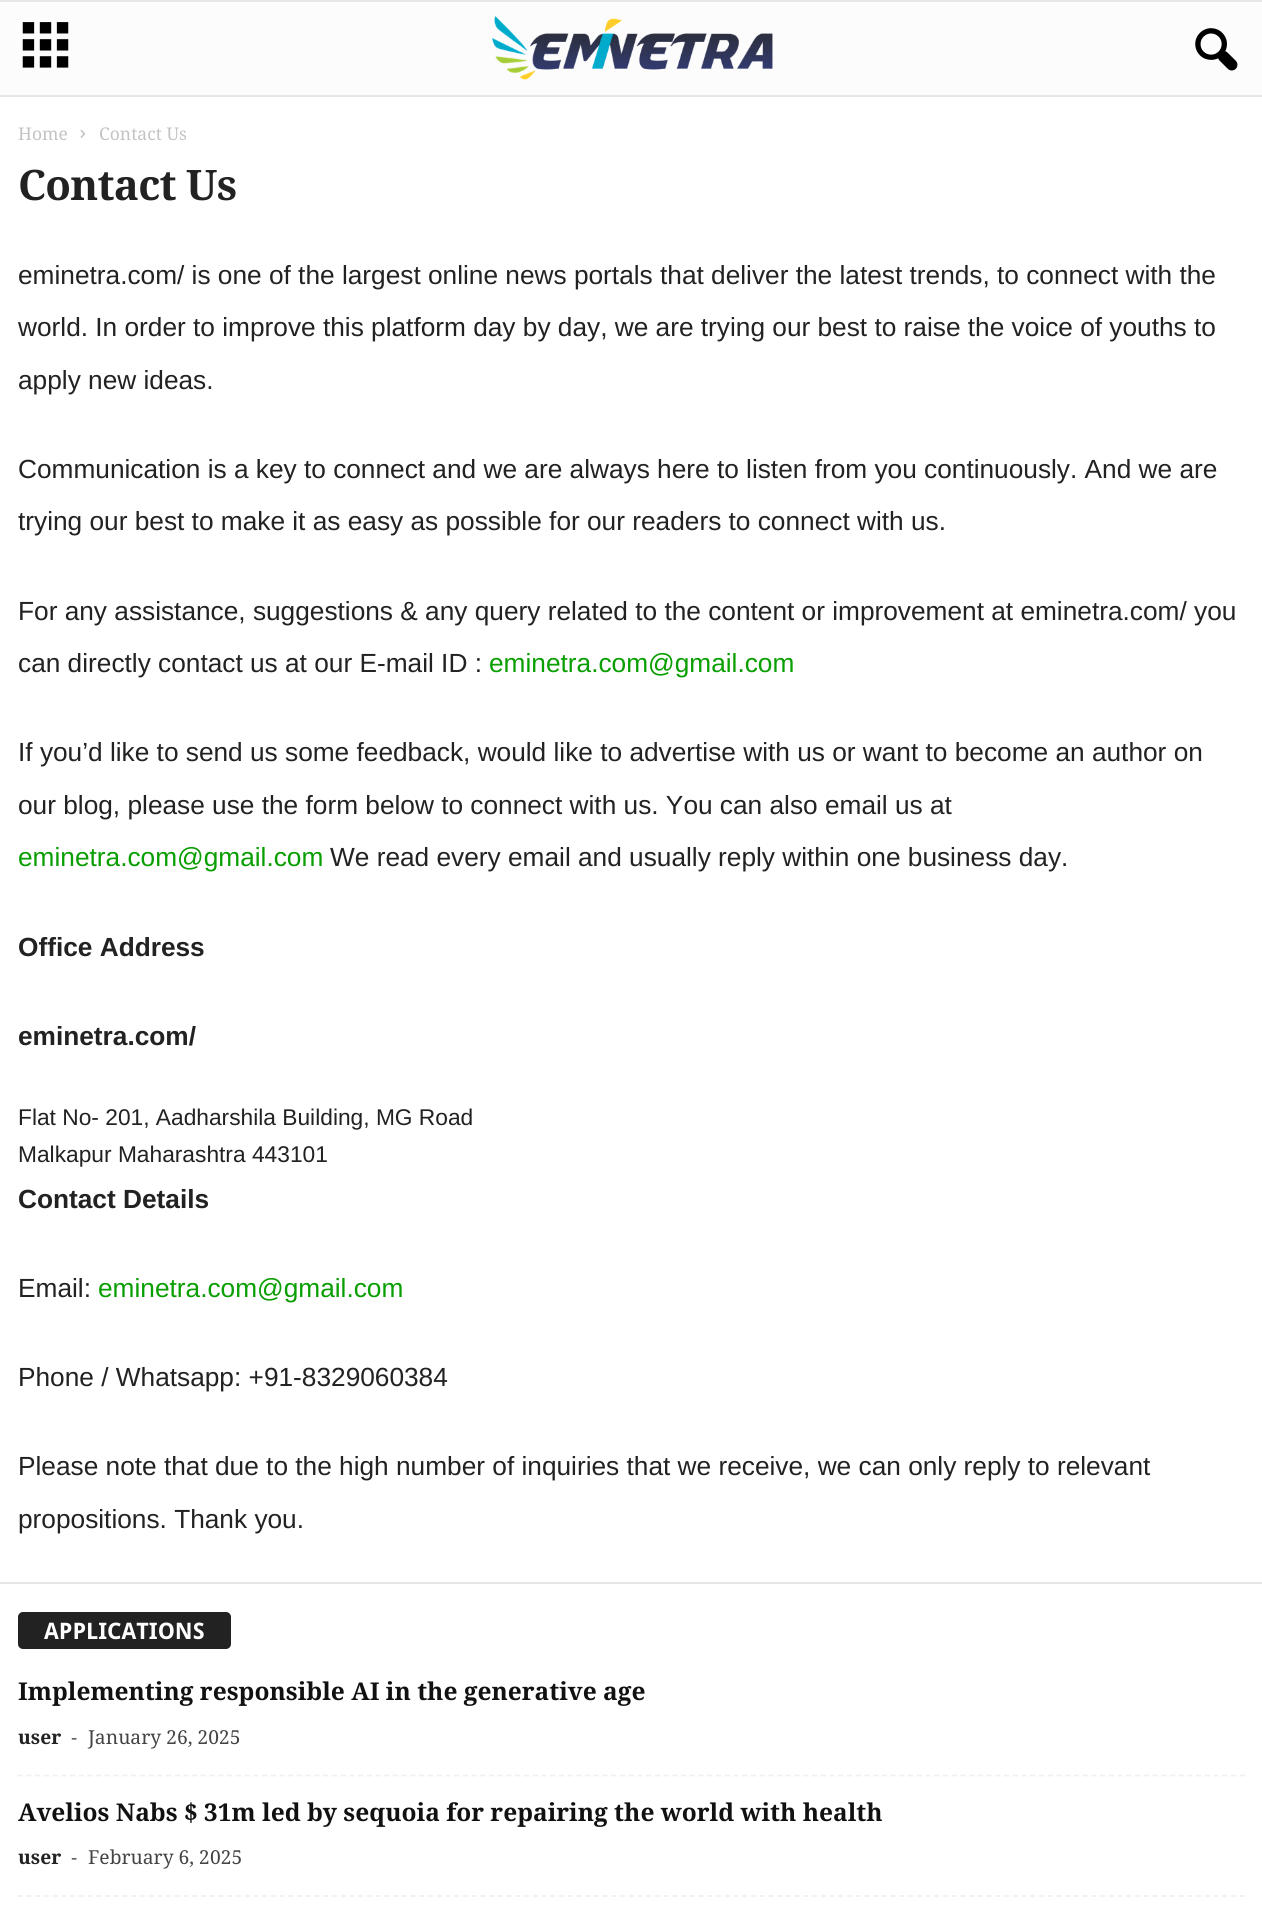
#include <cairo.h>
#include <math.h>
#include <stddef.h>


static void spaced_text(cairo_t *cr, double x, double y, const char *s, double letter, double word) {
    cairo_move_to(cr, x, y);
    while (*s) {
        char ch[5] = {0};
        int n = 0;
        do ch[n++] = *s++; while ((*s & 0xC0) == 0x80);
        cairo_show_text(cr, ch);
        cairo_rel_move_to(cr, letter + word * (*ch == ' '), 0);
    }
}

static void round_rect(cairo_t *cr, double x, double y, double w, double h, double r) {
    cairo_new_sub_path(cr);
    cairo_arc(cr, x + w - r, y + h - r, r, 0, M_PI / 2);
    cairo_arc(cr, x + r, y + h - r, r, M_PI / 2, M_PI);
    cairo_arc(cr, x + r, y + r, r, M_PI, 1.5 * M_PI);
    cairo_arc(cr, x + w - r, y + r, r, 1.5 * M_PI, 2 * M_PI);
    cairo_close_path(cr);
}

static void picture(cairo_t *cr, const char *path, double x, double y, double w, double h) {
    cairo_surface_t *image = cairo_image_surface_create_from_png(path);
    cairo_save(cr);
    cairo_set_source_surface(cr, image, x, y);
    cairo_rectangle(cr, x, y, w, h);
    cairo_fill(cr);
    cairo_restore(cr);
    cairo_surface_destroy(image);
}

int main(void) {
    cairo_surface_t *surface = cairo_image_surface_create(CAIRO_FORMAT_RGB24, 1262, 1919);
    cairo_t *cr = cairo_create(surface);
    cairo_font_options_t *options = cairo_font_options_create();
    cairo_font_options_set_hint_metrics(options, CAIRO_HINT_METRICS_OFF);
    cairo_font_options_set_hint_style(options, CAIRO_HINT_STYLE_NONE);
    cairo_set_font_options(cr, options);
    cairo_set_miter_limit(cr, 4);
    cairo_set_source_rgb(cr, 1, 1, 1);
    cairo_paint(cr);
    cairo_set_source_rgb(cr, 0.988, 0.988, 0.988);
    cairo_rectangle(cr, 0, 2, 1262, 93);
    cairo_fill(cr);
    cairo_set_source_rgb(cr, 0.902, 0.902, 0.902);
    cairo_rectangle(cr, 0, 0, 1262, 2);
    cairo_fill(cr);
    cairo_rectangle(cr, 0, 95, 1262, 2);
    cairo_fill(cr);
    picture(cr, "img1.png", 22, 22, 47, 46);
    picture(cr, "img2.png", 491, 15, 282, 65);
    picture(cr, "img3.png", 1195, 28, 43, 43);
    cairo_select_font_face(cr, "Droid Serif", CAIRO_FONT_SLANT_NORMAL, CAIRO_FONT_WEIGHT_NORMAL);
    cairo_set_font_size(cr, 17.5);
    cairo_set_source_rgb(cr, 0.765, 0.765, 0.765);
    cairo_move_to(cr, 18, 140);
    cairo_show_text(cr, "Home");
    picture(cr, "img4.png", 80, 129, 6, 9);
    cairo_move_to(cr, 99, 140);
    cairo_show_text(cr, "Contact Us");
    cairo_select_font_face(cr, "Droid Serif", CAIRO_FONT_SLANT_NORMAL, CAIRO_FONT_WEIGHT_BOLD);
    cairo_set_font_size(cr, 42);
    cairo_set_source_rgb(cr, 0.133, 0.133, 0.133);
    spaced_text(cr, 18, 200, "Contact Us", -0.75, 0);
    cairo_select_font_face(cr, "Arimo", CAIRO_FONT_SLANT_NORMAL, CAIRO_FONT_WEIGHT_NORMAL);
    cairo_set_font_size(cr, 26.25);
    cairo_move_to(cr, 18, 284);
    cairo_show_text(cr, "eminetra.com/ is one of the largest online news portals that deliver the latest trends, to connect with the");
    cairo_move_to(cr, 18, 336);
    cairo_show_text(cr, "world. In order to improve this platform day by day, we are trying our best to raise the voice of youths to");
    cairo_move_to(cr, 18, 389);
    cairo_show_text(cr, "apply new ideas.");
    cairo_move_to(cr, 18, 478);
    cairo_show_text(cr, "Communication is a key to connect and we are always here to listen from you continuously. And we are");
    cairo_move_to(cr, 18, 530);
    cairo_show_text(cr, "trying our best to make it as easy as possible for our readers to connect with us.");
    cairo_move_to(cr, 18, 620);
    cairo_show_text(cr, "For any assistance, suggestions & any query related to the content or improvement at eminetra.com/ you");
    cairo_move_to(cr, 18, 672);
    cairo_show_text(cr, "can directly contact us at our E-mail ID :");
    cairo_set_source_rgb(cr, 0.039, 0.62, 0.004);
    cairo_move_to(cr, 489, 672);
    cairo_show_text(cr, "eminetra.com@gmail.com");
    cairo_set_source_rgb(cr, 0.133, 0.133, 0.133);
    cairo_move_to(cr, 18, 761);
    cairo_show_text(cr, "If you’d like to send us some feedback, would like to advertise with us or want to become an author on");
    cairo_move_to(cr, 18, 814);
    cairo_show_text(cr, "our blog, please use the form below to connect with us. You can also email us at");
    cairo_set_source_rgb(cr, 0.039, 0.62, 0.004);
    cairo_move_to(cr, 18, 866);
    cairo_show_text(cr, "eminetra.com@gmail.com");
    cairo_set_source_rgb(cr, 0.133, 0.133, 0.133);
    cairo_move_to(cr, 330, 866);
    cairo_show_text(cr, "We read every email and usually reply within one business day.");
    cairo_select_font_face(cr, "Arimo", CAIRO_FONT_SLANT_NORMAL, CAIRO_FONT_WEIGHT_BOLD);
    cairo_move_to(cr, 18, 956);
    cairo_show_text(cr, "Office Address");
    cairo_move_to(cr, 18, 1045);
    cairo_show_text(cr, "eminetra.com/");
    cairo_select_font_face(cr, "Liberation Sans", CAIRO_FONT_SLANT_NORMAL, CAIRO_FONT_WEIGHT_NORMAL);
    cairo_set_font_size(cr, 22.75);
    cairo_move_to(cr, 18, 1125);
    cairo_show_text(cr, "Flat No- 201, Aadharshila Building, MG Road");
    cairo_move_to(cr, 18, 1162);
    cairo_show_text(cr, "Malkapur Maharashtra 443101");
    cairo_select_font_face(cr, "Arimo", CAIRO_FONT_SLANT_NORMAL, CAIRO_FONT_WEIGHT_BOLD);
    cairo_set_font_size(cr, 26.25);
    cairo_move_to(cr, 18, 1208);
    cairo_show_text(cr, "Contact Details");
    cairo_select_font_face(cr, "Arimo", CAIRO_FONT_SLANT_NORMAL, CAIRO_FONT_WEIGHT_NORMAL);
    cairo_move_to(cr, 18, 1297);
    cairo_show_text(cr, "Email:");
    cairo_set_source_rgb(cr, 0.039, 0.62, 0.004);
    cairo_move_to(cr, 98, 1297);
    cairo_show_text(cr, "eminetra.com@gmail.com");
    cairo_set_source_rgb(cr, 0.133, 0.133, 0.133);
    cairo_move_to(cr, 18, 1386);
    cairo_show_text(cr, "Phone / Whatsapp: +91-8329060384");
    cairo_move_to(cr, 18, 1475);
    cairo_show_text(cr, "Please note that due to the high number of inquiries that we receive, we can only reply to relevant");
    cairo_move_to(cr, 18, 1528);
    cairo_show_text(cr, "propositions. Thank you.");
    cairo_set_source_rgb(cr, 0.902, 0.902, 0.902);
    cairo_rectangle(cr, 0, 1582, 1262, 2);
    cairo_fill(cr);
    cairo_set_source_rgb(cr, 0.133, 0.133, 0.133);
    round_rect(cr, 18, 1612, 213, 37, 5);
    cairo_fill(cr);
    cairo_select_font_face(cr, "Droid Sans", CAIRO_FONT_SLANT_NORMAL, CAIRO_FONT_WEIGHT_BOLD);
    cairo_set_font_size(cr, 22.75);
    cairo_set_source_rgb(cr, 1, 1, 1);
    cairo_move_to(cr, 44, 1639);
    cairo_show_text(cr, "APPLICATIONS");
    cairo_new_path(cr);
    cairo_move_to(cr, 17.5, 1775.5);
    cairo_line_to(cr, 1246, 1775.5);
    cairo_set_source_rgb(cr, 0.945, 0.945, 0.945);
    cairo_set_line_width(cr, 1.8);
    cairo_set_dash(cr, (double[]){5.25, 3.48}, 2, 0);
    cairo_stroke(cr);
    cairo_select_font_face(cr, "Droid Serif", CAIRO_FONT_SLANT_NORMAL, CAIRO_FONT_WEIGHT_BOLD);
    cairo_set_font_size(cr, 24.5);
    cairo_set_source_rgb(cr, 0.067, 0.067, 0.067);
    cairo_move_to(cr, 18, 1700);
    cairo_show_text(cr, "Implementing responsible AI in the generative age");
    cairo_set_font_size(cr, 19.25);
    cairo_set_source_rgb(cr, 0.133, 0.133, 0.133);
    cairo_move_to(cr, 18, 1744);
    cairo_show_text(cr, "user");
    cairo_select_font_face(cr, "Open Sans", CAIRO_FONT_SLANT_NORMAL, CAIRO_FONT_WEIGHT_NORMAL);
    cairo_set_source_rgb(cr, 0.267, 0.267, 0.267);
    cairo_move_to(cr, 71, 1744);
    cairo_show_text(cr, "-");
    cairo_select_font_face(cr, "Droid Serif", CAIRO_FONT_SLANT_NORMAL, CAIRO_FONT_WEIGHT_NORMAL);
    cairo_move_to(cr, 88, 1744);
    cairo_show_text(cr, "January 26, 2025");
    cairo_new_path(cr);
    cairo_move_to(cr, 17.5, 1896);
    cairo_line_to(cr, 1246, 1896);
    cairo_set_source_rgb(cr, 0.945, 0.945, 0.945);
    cairo_stroke(cr);
    cairo_select_font_face(cr, "Droid Serif", CAIRO_FONT_SLANT_NORMAL, CAIRO_FONT_WEIGHT_BOLD);
    cairo_set_font_size(cr, 24.5);
    cairo_set_source_rgb(cr, 0.067, 0.067, 0.067);
    cairo_move_to(cr, 18, 1821);
    cairo_show_text(cr, "Avelios Nabs $ 31m led by sequoia for repairing the world with health");
    cairo_set_font_size(cr, 19.25);
    cairo_set_source_rgb(cr, 0.133, 0.133, 0.133);
    cairo_move_to(cr, 18, 1864);
    cairo_show_text(cr, "user");
    cairo_select_font_face(cr, "Open Sans", CAIRO_FONT_SLANT_NORMAL, CAIRO_FONT_WEIGHT_NORMAL);
    cairo_set_source_rgb(cr, 0.267, 0.267, 0.267);
    cairo_move_to(cr, 71, 1864);
    cairo_show_text(cr, "-");
    cairo_select_font_face(cr, "Droid Serif", CAIRO_FONT_SLANT_NORMAL, CAIRO_FONT_WEIGHT_NORMAL);
    cairo_move_to(cr, 88, 1864);
    cairo_show_text(cr, "February 6, 2025");
    cairo_surface_write_to_png(surface, "page.png");
    cairo_font_options_destroy(options);
    cairo_destroy(cr);
    cairo_surface_destroy(surface);
    return 0;
}
